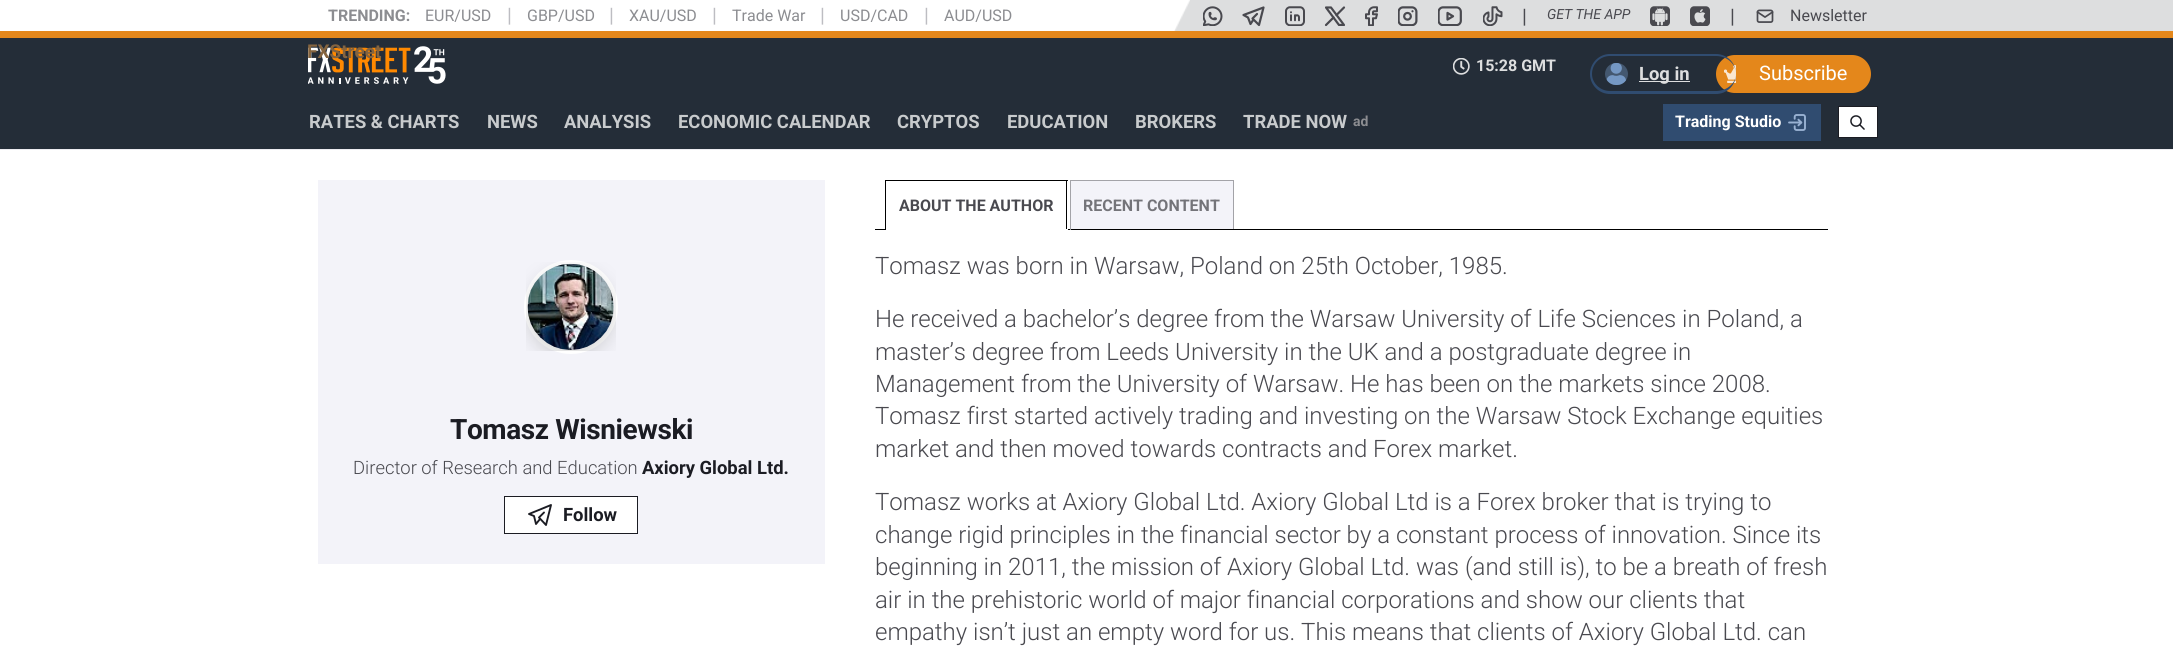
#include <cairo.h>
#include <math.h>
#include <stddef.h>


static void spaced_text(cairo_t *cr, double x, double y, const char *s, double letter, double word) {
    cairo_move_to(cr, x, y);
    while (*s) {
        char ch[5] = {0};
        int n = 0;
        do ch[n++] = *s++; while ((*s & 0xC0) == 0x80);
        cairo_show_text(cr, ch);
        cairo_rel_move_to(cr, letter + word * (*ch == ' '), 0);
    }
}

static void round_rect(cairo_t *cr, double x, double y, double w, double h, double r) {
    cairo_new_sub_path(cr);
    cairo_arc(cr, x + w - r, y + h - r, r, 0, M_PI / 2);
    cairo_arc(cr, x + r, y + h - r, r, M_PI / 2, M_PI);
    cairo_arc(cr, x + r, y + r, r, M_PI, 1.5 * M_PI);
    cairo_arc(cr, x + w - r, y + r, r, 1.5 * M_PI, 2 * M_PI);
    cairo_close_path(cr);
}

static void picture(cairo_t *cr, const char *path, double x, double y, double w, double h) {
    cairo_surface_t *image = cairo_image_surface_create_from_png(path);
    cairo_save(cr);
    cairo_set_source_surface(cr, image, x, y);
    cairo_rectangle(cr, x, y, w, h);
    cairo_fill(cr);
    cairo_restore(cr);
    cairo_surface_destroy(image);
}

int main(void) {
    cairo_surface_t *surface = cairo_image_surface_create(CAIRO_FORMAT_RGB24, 2173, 647);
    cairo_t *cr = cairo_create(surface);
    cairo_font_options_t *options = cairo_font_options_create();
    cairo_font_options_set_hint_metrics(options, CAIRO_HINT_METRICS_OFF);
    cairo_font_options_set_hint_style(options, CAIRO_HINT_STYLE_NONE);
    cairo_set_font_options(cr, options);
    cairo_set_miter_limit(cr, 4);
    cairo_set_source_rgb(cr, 1, 1, 1);
    cairo_paint(cr);
    cairo_set_source_rgb(cr, 0.867, 0.871, 0.875);
    cairo_rectangle(cr, 1190, 0, 983, 31);
    cairo_fill(cr);
    cairo_select_font_face(cr, "Roboto", CAIRO_FONT_SLANT_NORMAL, CAIRO_FONT_WEIGHT_BOLD);
    cairo_set_font_size(cr, 16);
    cairo_set_source_rgb(cr, 0.549, 0.553, 0.569);
    cairo_move_to(cr, 328, 21);
    cairo_show_text(cr, "TRENDING:");
    cairo_select_font_face(cr, "Roboto", CAIRO_FONT_SLANT_NORMAL, CAIRO_FONT_WEIGHT_NORMAL);
    cairo_move_to(cr, 425, 21);
    cairo_show_text(cr, "EUR/USD");
    cairo_set_font_size(cr, 20);
    cairo_set_source_rgb(cr, 0.741, 0.741, 0.761);
    cairo_move_to(cr, 507, 22);
    cairo_show_text(cr, "|");
    cairo_set_font_size(cr, 16);
    cairo_set_source_rgb(cr, 0.549, 0.553, 0.569);
    cairo_move_to(cr, 527, 21);
    cairo_show_text(cr, "GBP/USD");
    cairo_set_font_size(cr, 20);
    cairo_set_source_rgb(cr, 0.741, 0.741, 0.761);
    cairo_move_to(cr, 609, 22);
    cairo_show_text(cr, "|");
    cairo_set_font_size(cr, 16);
    cairo_set_source_rgb(cr, 0.549, 0.553, 0.569);
    cairo_move_to(cr, 629, 21);
    cairo_show_text(cr, "XAU/USD");
    cairo_set_font_size(cr, 20);
    cairo_set_source_rgb(cr, 0.741, 0.741, 0.761);
    cairo_move_to(cr, 712, 22);
    cairo_show_text(cr, "|");
    cairo_set_font_size(cr, 16);
    cairo_set_source_rgb(cr, 0.549, 0.553, 0.569);
    cairo_move_to(cr, 732, 21);
    cairo_show_text(cr, "Trade War");
    cairo_set_font_size(cr, 20);
    cairo_set_source_rgb(cr, 0.741, 0.741, 0.761);
    cairo_move_to(cr, 820, 22);
    cairo_show_text(cr, "|");
    cairo_set_font_size(cr, 16);
    cairo_set_source_rgb(cr, 0.549, 0.553, 0.569);
    cairo_move_to(cr, 840, 21);
    cairo_show_text(cr, "USD/CAD");
    cairo_set_font_size(cr, 20);
    cairo_set_source_rgb(cr, 0.741, 0.741, 0.761);
    cairo_move_to(cr, 924, 22);
    cairo_show_text(cr, "|");
    cairo_set_font_size(cr, 16);
    cairo_set_source_rgb(cr, 0.549, 0.553, 0.569);
    cairo_move_to(cr, 944, 21);
    cairo_show_text(cr, "AUD/USD");
    picture(cr, "img1.png", 1174, 0, 16, 31);
    picture(cr, "img2.png", 1203, 6, 20, 20);
    cairo_new_path(cr);
    cairo_move_to(cr, 1257, 14);
    cairo_line_to(cr, 1252.5, 18.5);
    cairo_line_to(cr, 1259, 25);
    cairo_line_to(cr, 1263.5, 7.5);
    cairo_line_to(cr, 1243.5, 15);
    cairo_line_to(cr, 1248, 17.5);
    cairo_line_to(cr, 1250.5, 24);
    cairo_line_to(cr, 1253.5, 19.5);
    cairo_set_source_rgb(cr, 0.286, 0.286, 0.31);
    cairo_set_line_width(cr, 2.2);
    cairo_set_line_cap(cr, CAIRO_LINE_CAP_ROUND);
    cairo_set_line_join(cr, CAIRO_LINE_JOIN_ROUND);
    cairo_stroke(cr);
    picture(cr, "img3.png", 1285, 6, 20, 20);
    cairo_save(cr);
    cairo_rectangle(cr, 1325, 6, 20, 20);
    cairo_clip(cr);
    cairo_new_path(cr);
    cairo_move_to(cr, 1326, 7.5);
    cairo_line_to(cr, 1339, 25);
    cairo_line_to(cr, 1344, 25);
    cairo_line_to(cr, 1331, 7.5);
    cairo_close_path(cr);
    cairo_stroke(cr);
    cairo_restore(cr);
    cairo_new_path(cr);
    cairo_move_to(cr, 1326, 25);
    cairo_line_to(cr, 1333.5, 17.5);
    cairo_move_to(cr, 1336.5, 15);
    cairo_line_to(cr, 1344, 7.5);
    cairo_stroke(cr);
    picture(cr, "img4.png", 1365, 6, 13, 20);
    picture(cr, "img5.png", 1398, 6, 20, 20);
    picture(cr, "img6.png", 1438, 6, 24, 20);
    picture(cr, "img7.png", 1483, 6, 20, 20);
    cairo_set_font_size(cr, 20);
    cairo_move_to(cr, 1522, 23);
    cairo_show_text(cr, "|");
    cairo_select_font_face(cr, "Roboto", CAIRO_FONT_SLANT_ITALIC, CAIRO_FONT_WEIGHT_NORMAL);
    cairo_set_font_size(cr, 14);
    cairo_move_to(cr, 1547, 19);
    cairo_show_text(cr, "GET THE APP");
    picture(cr, "img8.png", 1650, 6, 20, 20);
    picture(cr, "img9.png", 1690, 6, 20, 20);
    cairo_select_font_face(cr, "Roboto", CAIRO_FONT_SLANT_NORMAL, CAIRO_FONT_WEIGHT_NORMAL);
    cairo_set_font_size(cr, 20);
    cairo_move_to(cr, 1730, 23);
    cairo_show_text(cr, "|");
    picture(cr, "img10.png", 1756, 9, 18, 14);
    cairo_set_font_size(cr, 16);
    cairo_move_to(cr, 1790, 21);
    cairo_show_text(cr, "Newsletter");
    cairo_set_source_rgb(cr, 0.894, 0.529, 0.106);
    cairo_rectangle(cr, 0, 31, 2173, 7);
    cairo_fill(cr);
    cairo_set_source_rgb(cr, 0.141, 0.176, 0.22);
    cairo_rectangle(cr, 0, 38, 2173, 111);
    cairo_fill(cr);
    picture(cr, "img11.png", 308, 46, 138, 38);
    cairo_select_font_face(cr, "Roboto", CAIRO_FONT_SLANT_NORMAL, CAIRO_FONT_WEIGHT_BOLD);
    cairo_set_font_size(cr, 19);
    cairo_set_source_rgb(cr, 0.522, 0.392, 0.247);
    cairo_move_to(cr, 307, 58);
    cairo_show_text(cr, "FXStreet");
    picture(cr, "img12.png", 1453, 58, 17, 17);
    cairo_set_font_size(cr, 16);
    cairo_set_source_rgb(cr, 0.867, 0.871, 0.875);
    cairo_move_to(cr, 1476, 71);
    cairo_show_text(cr, "15:28 GMT");
    cairo_set_source_rgb(cr, 0.894, 0.529, 0.106);
    cairo_new_path(cr);
    cairo_arc(cr, 1735, 74, 19, 0, 2 * M_PI);
    cairo_fill(cr);
    picture(cr, "img14.png", 1724, 65, 12, 18);
    cairo_set_source_rgb(cr, 0.188, 0.298, 0.439);
    cairo_set_fill_rule(cr, CAIRO_FILL_RULE_EVEN_ODD);
    cairo_new_path(cr);
    cairo_move_to(cr, 1610, 54);
    cairo_line_to(cr, 1716, 54);
    cairo_curve_to(cr, 1727, 54, 1736, 63, 1736, 74);
    cairo_curve_to(cr, 1736, 85, 1727, 94, 1716, 94);
    cairo_line_to(cr, 1610, 94);
    cairo_curve_to(cr, 1599, 94, 1590, 85, 1590, 74);
    cairo_curve_to(cr, 1590, 63, 1599, 54, 1610, 54);
    cairo_close_path(cr);
    cairo_move_to(cr, 1610, 56);
    cairo_line_to(cr, 1716, 56);
    cairo_curve_to(cr, 1727, 56, 1736, 64, 1736, 74);
    cairo_curve_to(cr, 1736, 83, 1727, 91, 1716, 91);
    cairo_line_to(cr, 1610, 91);
    cairo_curve_to(cr, 1600, 91, 1592, 83, 1592, 74);
    cairo_curve_to(cr, 1592, 64, 1600, 56, 1610, 56);
    cairo_close_path(cr);
    cairo_fill(cr);
    cairo_set_source_rgb(cr, 0.267, 0.345, 0.439);
    round_rect(cr, 1605, 63, 23, 22, 11);
    cairo_fill(cr);
    picture(cr, "img13.png", 1606, 63, 20, 22);
    cairo_set_source_rgb(cr, 0.867, 0.871, 0.875);
    cairo_rectangle(cr, 1639, 81, 51, 1);
    cairo_fill(cr);
    cairo_set_font_size(cr, 18.4);
    cairo_move_to(cr, 1639, 80);
    cairo_show_text(cr, "Log in");
    cairo_set_source_rgb(cr, 0.894, 0.529, 0.106);
    cairo_new_path(cr);
    cairo_move_to(cr, 1736, 55);
    cairo_line_to(cr, 1852, 55);
    cairo_curve_to(cr, 1862.5, 55, 1871, 63.5, 1871, 74);
    cairo_curve_to(cr, 1871, 84.5, 1862.5, 93, 1852, 93);
    cairo_line_to(cr, 1736, 93);
    cairo_close_path(cr);
    cairo_fill(cr);
    cairo_select_font_face(cr, "Roboto", CAIRO_FONT_SLANT_NORMAL, CAIRO_FONT_WEIGHT_NORMAL);
    cairo_set_font_size(cr, 20);
    cairo_set_source_rgb(cr, 1, 1, 1);
    cairo_move_to(cr, 1759, 80);
    cairo_show_text(cr, "Subscribe");
    cairo_set_source_rgb(cr, 0.925, 0.925, 0.945);
    cairo_rectangle(cr, 0, 149, 2173, 1);
    cairo_fill(cr);
    cairo_select_font_face(cr, "Roboto", CAIRO_FONT_SLANT_NORMAL, CAIRO_FONT_WEIGHT_BOLD);
    cairo_set_font_size(cr, 18.4);
    cairo_set_source_rgb(cr, 0.784, 0.796, 0.804);
    cairo_move_to(cr, 309, 128);
    cairo_show_text(cr, "RATES & CHARTS");
    cairo_move_to(cr, 487, 128);
    cairo_show_text(cr, "NEWS");
    cairo_move_to(cr, 564, 128);
    cairo_show_text(cr, "ANALYSIS");
    cairo_move_to(cr, 678, 128);
    cairo_show_text(cr, "ECONOMIC CALENDAR");
    cairo_move_to(cr, 897, 128);
    cairo_show_text(cr, "CRYPTOS");
    cairo_move_to(cr, 1007, 128);
    cairo_show_text(cr, "EDUCATION");
    cairo_move_to(cr, 1135, 128);
    cairo_show_text(cr, "BROKERS");
    cairo_move_to(cr, 1243, 128);
    cairo_show_text(cr, "TRADE NOW");
    cairo_set_font_size(cr, 14);
    cairo_set_source_rgb(cr, 0.549, 0.553, 0.569);
    cairo_move_to(cr, 1353, 126);
    cairo_show_text(cr, "ad");
    cairo_set_source_rgb(cr, 0.188, 0.298, 0.439);
    cairo_rectangle(cr, 1663, 104, 158, 37);
    cairo_fill(cr);
    cairo_set_font_size(cr, 16);
    cairo_set_source_rgb(cr, 1, 1, 1);
    cairo_move_to(cr, 1675, 127);
    cairo_show_text(cr, "Trading Studio");
    picture(cr, "img15.png", 1788, 114, 18, 17);
    cairo_rectangle(cr, 1838.5, 106.5, 39, 31);
    cairo_fill_preserve(cr);
    cairo_set_source_rgb(cr, 0.106, 0.11, 0.137);
    cairo_set_line_width(cr, 1);
    cairo_set_line_cap(cr, CAIRO_LINE_CAP_BUTT);
    cairo_set_line_join(cr, CAIRO_LINE_JOIN_MITER);
    cairo_stroke(cr);
    picture(cr, "img16.png", 1850, 115, 15, 15);
    cairo_set_source_rgb(cr, 0.953, 0.953, 0.973);
    cairo_rectangle(cr, 318, 180, 507, 384);
    cairo_fill(cr);
    cairo_arc(cr, 571, 307, 45, 0, 2 * M_PI);
    cairo_set_source_rgb(cr, 1, 1, 1);
    cairo_set_line_width(cr, 4);
    cairo_stroke(cr);
    picture(cr, "img17.png", 526, 262, 90, 89);
    cairo_set_font_size(cr, 28);
    cairo_set_source_rgb(cr, 0.106, 0.11, 0.137);
    spaced_text(cr, 450, 439, "Tomasz Wisniewski", -0.4, 0);
    cairo_select_font_face(cr, "Roboto Light", CAIRO_FONT_SLANT_NORMAL, CAIRO_FONT_WEIGHT_NORMAL);
    cairo_set_font_size(cr, 18.4);
    cairo_set_source_rgb(cr, 0.286, 0.286, 0.31);
    cairo_move_to(cr, 353, 474);
    cairo_show_text(cr, "Director of Research and Education");
    cairo_select_font_face(cr, "Roboto", CAIRO_FONT_SLANT_NORMAL, CAIRO_FONT_WEIGHT_BOLD);
    cairo_set_source_rgb(cr, 0.106, 0.11, 0.137);
    cairo_move_to(cr, 642, 474);
    cairo_show_text(cr, "Axiory Global Ltd.");
    cairo_set_source_rgb(cr, 1, 1, 1);
    cairo_rectangle(cr, 504.5, 496.5, 133, 37);
    cairo_fill_preserve(cr);
    cairo_set_source_rgb(cr, 0.106, 0.11, 0.137);
    cairo_set_line_width(cr, 1);
    cairo_stroke(cr);
    cairo_new_path(cr);
    cairo_move_to(cr, 544, 512.5);
    cairo_line_to(cr, 539, 517.5);
    cairo_line_to(cr, 546, 525);
    cairo_line_to(cr, 551, 505);
    cairo_line_to(cr, 529, 514);
    cairo_line_to(cr, 534, 516);
    cairo_line_to(cr, 536, 524);
    cairo_line_to(cr, 540, 519);
    cairo_set_line_width(cr, 1.9);
    cairo_set_line_cap(cr, CAIRO_LINE_CAP_ROUND);
    cairo_set_line_join(cr, CAIRO_LINE_JOIN_ROUND);
    cairo_stroke(cr);
    cairo_move_to(cr, 563, 521);
    cairo_show_text(cr, "Follow");
    cairo_set_source_rgb(cr, 0, 0, 0);
    cairo_rectangle(cr, 875, 229, 953, 1);
    cairo_fill(cr);
    cairo_rectangle(cr, 885, 180, 183, 1);
    cairo_fill(cr);
    cairo_rectangle(cr, 1066, 180, 1, 50);
    cairo_fill(cr);
    cairo_set_source_rgb(cr, 1, 1, 1);
    cairo_rectangle(cr, 885, 229, 183, 1);
    cairo_fill(cr);
    cairo_set_source_rgb(cr, 0, 0, 0);
    cairo_rectangle(cr, 885, 180, 1, 50);
    cairo_fill(cr);
    cairo_set_font_size(cr, 16);
    cairo_set_source_rgb(cr, 0.286, 0.286, 0.31);
    cairo_move_to(cr, 899, 211);
    cairo_show_text(cr, "ABOUT THE AUTHOR");
    cairo_set_source_rgb(cr, 0.953, 0.953, 0.973);
    cairo_rectangle(cr, 1071, 181, 162, 48);
    cairo_fill(cr);
    cairo_set_source_rgb(cr, 0.639, 0.639, 0.659);
    cairo_rectangle(cr, 1070, 180, 164, 1);
    cairo_fill(cr);
    cairo_rectangle(cr, 1233, 180, 1, 50);
    cairo_fill(cr);
    cairo_set_source_rgb(cr, 0, 0, 0);
    cairo_rectangle(cr, 1233, 229, 1, 1);
    cairo_fill(cr);
    cairo_set_source_rgb(cr, 0.639, 0.639, 0.659);
    cairo_rectangle(cr, 1070, 180, 1, 50);
    cairo_fill(cr);
    cairo_set_source_rgb(cr, 0.455, 0.455, 0.475);
    cairo_move_to(cr, 1083, 211);
    cairo_show_text(cr, "RECENT CONTENT");
    cairo_select_font_face(cr, "Roboto Light", CAIRO_FONT_SLANT_NORMAL, CAIRO_FONT_WEIGHT_NORMAL);
    cairo_set_font_size(cr, 24);
    cairo_set_source_rgb(cr, 0.286, 0.286, 0.31);
    cairo_move_to(cr, 875, 274);
    cairo_show_text(cr, "Tomasz was born in Warsaw, Poland on 25th October, 1985.");
    cairo_move_to(cr, 875, 327);
    cairo_show_text(cr, "He received a bachelor’s degree from the Warsaw University of Life Sciences in Poland, a");
    cairo_move_to(cr, 875, 360);
    cairo_show_text(cr, "master’s degree from Leeds University in the UK and a postgraduate degree in");
    cairo_move_to(cr, 875, 392);
    cairo_show_text(cr, "Management from the University of Warsaw. He has been on the markets since 2008.");
    cairo_move_to(cr, 875, 424);
    cairo_show_text(cr, "Tomasz first started actively trading and investing on the Warsaw Stock Exchange equities");
    cairo_move_to(cr, 875, 457);
    cairo_show_text(cr, "market and then moved towards contracts and Forex market.");
    cairo_move_to(cr, 875, 510);
    cairo_show_text(cr, "Tomasz works at Axiory Global Ltd. Axiory Global Ltd is a Forex broker that is trying to");
    cairo_move_to(cr, 875, 543);
    cairo_show_text(cr, "change rigid principles in the financial sector by a constant process of innovation. Since its");
    cairo_move_to(cr, 875, 575);
    cairo_show_text(cr, "beginning in 2011, the mission of Axiory Global Ltd. was (and still is), to be a breath of fresh");
    cairo_move_to(cr, 875, 608);
    cairo_show_text(cr, "air in the prehistoric world of major financial corporations and show our clients that");
    cairo_move_to(cr, 875, 640);
    cairo_show_text(cr, "empathy isn’t just an empty word for us. This means that clients of Axiory Global Ltd. can");
    cairo_surface_write_to_png(surface, "page.png");
    cairo_font_options_destroy(options);
    cairo_destroy(cr);
    cairo_surface_destroy(surface);
    return 0;
}
